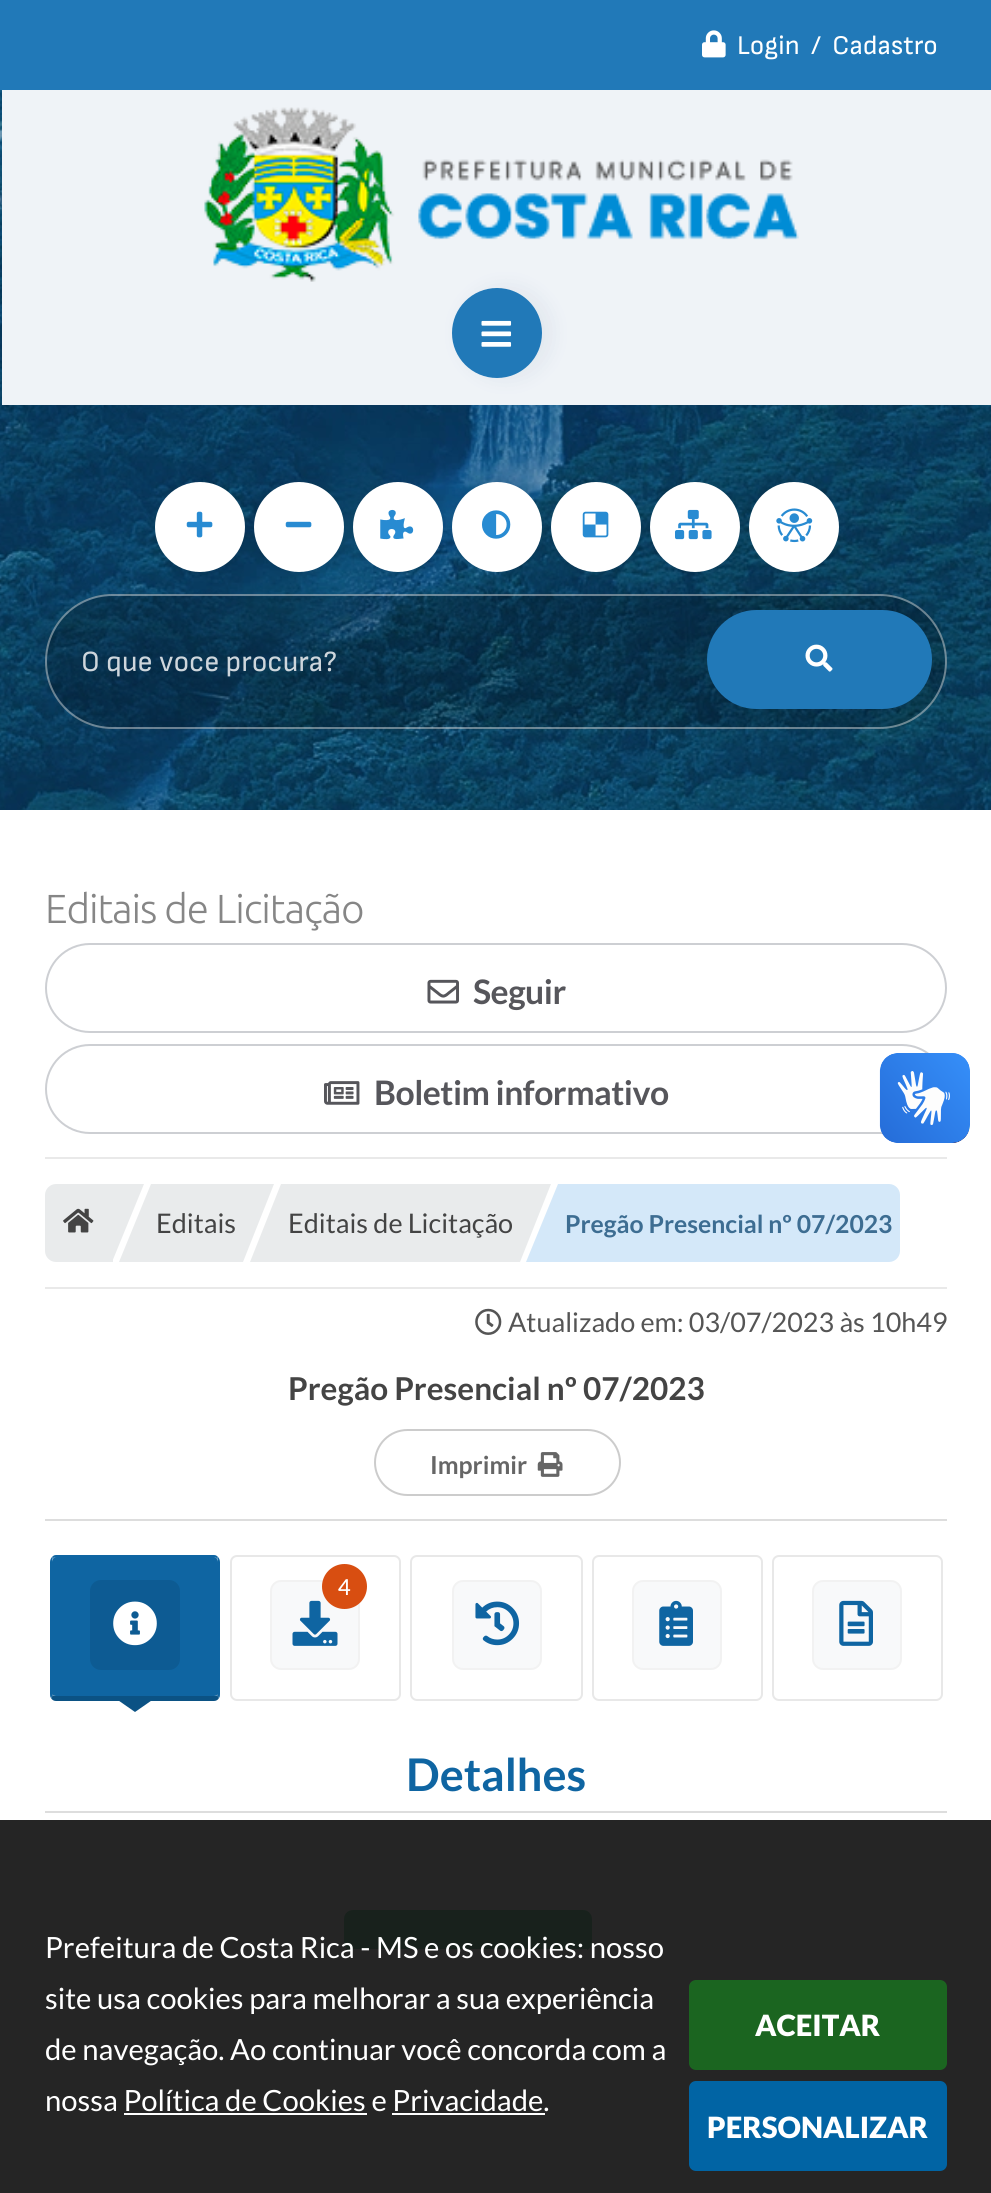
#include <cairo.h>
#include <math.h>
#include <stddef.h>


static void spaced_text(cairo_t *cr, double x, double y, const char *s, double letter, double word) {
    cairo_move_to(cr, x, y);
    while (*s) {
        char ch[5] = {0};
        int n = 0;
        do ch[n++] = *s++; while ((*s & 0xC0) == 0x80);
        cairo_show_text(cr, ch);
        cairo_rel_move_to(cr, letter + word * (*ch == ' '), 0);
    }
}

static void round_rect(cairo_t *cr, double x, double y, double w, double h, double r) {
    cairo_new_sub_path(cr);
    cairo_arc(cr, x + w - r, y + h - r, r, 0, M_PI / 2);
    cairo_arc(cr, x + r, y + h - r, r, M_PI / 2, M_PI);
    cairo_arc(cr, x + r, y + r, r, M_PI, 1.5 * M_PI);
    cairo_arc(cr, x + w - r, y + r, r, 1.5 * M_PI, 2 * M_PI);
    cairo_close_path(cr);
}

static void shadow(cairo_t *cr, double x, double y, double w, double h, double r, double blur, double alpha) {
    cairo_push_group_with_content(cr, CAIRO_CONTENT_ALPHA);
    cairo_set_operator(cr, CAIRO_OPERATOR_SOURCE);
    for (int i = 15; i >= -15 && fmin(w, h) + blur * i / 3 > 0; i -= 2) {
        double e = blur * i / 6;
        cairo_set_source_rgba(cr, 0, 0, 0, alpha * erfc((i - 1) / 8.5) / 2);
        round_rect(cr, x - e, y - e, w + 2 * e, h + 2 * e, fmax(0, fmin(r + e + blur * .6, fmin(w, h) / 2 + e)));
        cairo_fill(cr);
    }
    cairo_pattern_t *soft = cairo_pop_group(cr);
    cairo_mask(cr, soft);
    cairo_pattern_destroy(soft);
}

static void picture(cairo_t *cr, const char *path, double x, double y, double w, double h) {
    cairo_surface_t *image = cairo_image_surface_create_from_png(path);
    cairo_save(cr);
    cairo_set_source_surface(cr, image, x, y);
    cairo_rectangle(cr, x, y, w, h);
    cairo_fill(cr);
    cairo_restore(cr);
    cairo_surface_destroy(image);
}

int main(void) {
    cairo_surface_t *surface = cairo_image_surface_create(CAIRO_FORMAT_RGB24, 991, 2193);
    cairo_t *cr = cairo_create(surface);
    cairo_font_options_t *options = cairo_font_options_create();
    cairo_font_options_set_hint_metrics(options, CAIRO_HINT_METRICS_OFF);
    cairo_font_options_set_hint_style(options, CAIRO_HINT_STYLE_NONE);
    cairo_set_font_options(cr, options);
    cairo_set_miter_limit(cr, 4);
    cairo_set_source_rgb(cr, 1, 1, 1);
    cairo_paint(cr);
    cairo_set_source_rgb(cr, 0.145, 0.145, 0.145);
    cairo_rectangle(cr, 0, 1820, 991, 373);
    cairo_fill(cr);
    cairo_set_source_rgb(cr, 0.129, 0.475, 0.722);
    cairo_rectangle(cr, 0, 0, 991, 90);
    cairo_fill(cr);
    picture(cr, "img1.png", 702, 30, 24, 28);
    cairo_select_font_face(cr, "Sofia Sans", CAIRO_FONT_SLANT_NORMAL, CAIRO_FONT_WEIGHT_NORMAL);
    cairo_set_font_size(cr, 27);
    cairo_set_source_rgb(cr, 1, 1, 1);
    cairo_move_to(cr, 737, 54);
    cairo_show_text(cr, "Login  /  Cadastro");
    picture(cr, "img2.png", 0, 90, 991, 720);
    cairo_set_source_rgb(cr, 0.937, 0.953, 0.965);
    cairo_rectangle(cr, 2, 90, 989, 315);
    cairo_fill(cr);
    picture(cr, "img3.png", 204, 107, 595, 175);
    cairo_set_source_rgb(cr, 0.204, 0.322, 0.537);
    shadow(cr, 461, 288, 90, 90, 45, 11, 0.08);
    cairo_set_source_rgb(cr, 0.129, 0.475, 0.722);
    cairo_arc(cr, 497, 333, 45, 0, 2 * M_PI);
    cairo_fill(cr);
    picture(cr, "img4.png", 481, 320, 31, 27);
    cairo_set_source_rgb(cr, 0, 0, 0);
    shadow(cr, 155, 482, 90, 90, 45, 5.5, 0.1);
    cairo_set_source_rgb(cr, 1, 1, 1);
    cairo_arc(cr, 200, 527, 45, 0, 2 * M_PI);
    cairo_fill(cr);
    picture(cr, "img5.png", 186, 511, 27, 27);
    cairo_set_source_rgb(cr, 0, 0, 0);
    shadow(cr, 254, 482, 90, 90, 45, 5.5, 0.1);
    cairo_set_source_rgb(cr, 1, 1, 1);
    cairo_arc(cr, 299, 527, 45, 0, 2 * M_PI);
    cairo_fill(cr);
    picture(cr, "img6.png", 285, 521, 27, 7);
    cairo_set_source_rgb(cr, 0, 0, 0);
    shadow(cr, 353, 482, 90, 90, 45, 5.5, 0.1);
    cairo_set_source_rgb(cr, 1, 1, 1);
    cairo_arc(cr, 398, 527, 45, 0, 2 * M_PI);
    cairo_fill(cr);
    picture(cr, "img7.png", 380, 509, 34, 31);
    cairo_set_source_rgb(cr, 0, 0, 0);
    shadow(cr, 452, 482, 90, 90, 45, 5.5, 0.1);
    cairo_set_source_rgb(cr, 1, 1, 1);
    cairo_arc(cr, 497, 527, 45, 0, 2 * M_PI);
    cairo_fill(cr);
    picture(cr, "img8.png", 482, 510, 29, 29);
    cairo_set_source_rgb(cr, 0, 0, 0);
    shadow(cr, 551, 482, 90, 90, 45, 5.5, 0.1);
    cairo_set_source_rgb(cr, 1, 1, 1);
    cairo_arc(cr, 596, 527, 45, 0, 2 * M_PI);
    cairo_fill(cr);
    picture(cr, "img9.png", 582, 511, 27, 27);
    cairo_set_source_rgb(cr, 0, 0, 0);
    shadow(cr, 650, 482, 90, 90, 45, 5.5, 0.1);
    cairo_set_source_rgb(cr, 1, 1, 1);
    cairo_arc(cr, 695, 527, 45, 0, 2 * M_PI);
    cairo_fill(cr);
    picture(cr, "img10.png", 675, 509, 37, 31);
    cairo_set_source_rgb(cr, 0, 0, 0);
    shadow(cr, 749, 482, 90, 90, 45, 5.5, 0.1);
    cairo_set_source_rgb(cr, 1, 1, 1);
    cairo_arc(cr, 794, 527, 45, 0, 2 * M_PI);
    cairo_fill(cr);
    picture(cr, "img11.png", 776, 508, 37, 35);
    cairo_set_source_rgba(cr, 0, 0, 0, 0.2);
    round_rect(cr, 45, 594, 902, 135, 67.5);
    cairo_fill(cr);
    round_rect(cr, 46, 595, 900, 133, 66.5);
    cairo_set_source_rgba(cr, 1, 1, 1, 0.41);
    cairo_stroke(cr);
    cairo_set_font_size(cr, 29.25);
    cairo_set_source_rgb(cr, 0.808, 0.839, 0.863);
    cairo_move_to(cr, 81, 671);
    cairo_show_text(cr, "O que voce procura?");
    cairo_set_source_rgb(cr, 0.129, 0.475, 0.722);
    round_rect(cr, 707, 610, 225, 99, 49.5);
    cairo_fill(cr);
    picture(cr, "img12.png", 805, 644, 28, 28);
    round_rect(cr, 46, 1045, 900, 88, 44);
    cairo_set_source_rgb(cr, 0.804, 0.812, 0.827);
    cairo_stroke(cr);
    picture(cr, "img13.png", 879, 1053, 91, 90);
    picture(cr, "img14.png", 880, 1053, 90, 90);
    cairo_set_source_rgb(cr, 0.094, 0.129, 0.11);
    round_rect(cr, 344, 1910, 248, 41, 9);
    cairo_fill(cr);
    cairo_set_source_rgb(cr, 0.145, 0.145, 0.145);
    cairo_rectangle(cr, 349, 1949, 238, 2);
    cairo_fill(cr);
    cairo_select_font_face(cr, "Lato", CAIRO_FONT_SLANT_NORMAL, CAIRO_FONT_WEIGHT_NORMAL);
    cairo_set_source_rgb(cr, 1, 1, 1);
    cairo_move_to(cr, 45, 1958);
    cairo_show_text(cr, "Prefeitura de Costa Rica - MS e os cookies: nosso");
    cairo_move_to(cr, 45, 2009);
    cairo_show_text(cr, "site usa cookies para melhorar a sua experiência");
    cairo_move_to(cr, 45, 2060);
    cairo_show_text(cr, "de navegação. Ao continuar você concorda com a");
    cairo_move_to(cr, 45, 2111);
    cairo_show_text(cr, "nossa Política de Cookies e Privacidade.");
    cairo_rectangle(cr, 124, 2113, 243, 2);
    cairo_fill(cr);
    cairo_rectangle(cr, 392, 2113, 153, 2);
    cairo_fill(cr);
    cairo_set_source_rgb(cr, 0.106, 0.396, 0.125);
    round_rect(cr, 689, 1980, 258, 90, 7);
    cairo_fill(cr);
    cairo_select_font_face(cr, "Lato Black", CAIRO_FONT_SLANT_NORMAL, CAIRO_FONT_WEIGHT_NORMAL);
    cairo_set_source_rgb(cr, 1, 1, 1);
    cairo_move_to(cr, 755, 2036);
    cairo_show_text(cr, "ACEITAR");
    cairo_set_source_rgb(cr, 0.004, 0.392, 0.643);
    round_rect(cr, 689, 2081, 258, 90, 7);
    cairo_fill(cr);
    cairo_set_source_rgb(cr, 1, 1, 1);
    cairo_move_to(cr, 707, 2138);
    cairo_show_text(cr, "PERSONALIZAR");
    cairo_select_font_face(cr, "Ubuntu Light", CAIRO_FONT_SLANT_NORMAL, CAIRO_FONT_WEIGHT_NORMAL);
    cairo_set_font_size(cr, 40.5);
    cairo_set_source_rgb(cr, 0.525, 0.525, 0.525);
    spaced_text(cr, 45, 923, "Editais de Licitação", -1.1, 0);
    round_rect(cr, 46, 944, 900, 88, 44);
    cairo_set_source_rgb(cr, 0.804, 0.812, 0.827);
    cairo_stroke(cr);
    picture(cr, "img15.png", 427, 979, 32, 25);
    cairo_select_font_face(cr, "Lato", CAIRO_FONT_SLANT_NORMAL, CAIRO_FONT_WEIGHT_BOLD);
    cairo_set_font_size(cr, 33.75);
    cairo_set_source_rgb(cr, 0.337, 0.337, 0.357);
    spaced_text(cr, 473, 1004, "Seguir", -0.5, 0);
    picture(cr, "img16.png", 324, 1081, 36, 24);
    spaced_text(cr, 374, 1105, "Boletim informativo", -0.5, 0);
    cairo_set_source_rgb(cr, 0.914, 0.914, 0.914);
    cairo_rectangle(cr, 45, 1157, 902, 2);
    cairo_fill(cr);
    cairo_rectangle(cr, 45, 1287, 902, 2);
    cairo_fill(cr);
    cairo_set_source_rgb(cr, 0.914, 0.918, 0.925);
    cairo_new_path(cr);
    cairo_move_to(cr, 56, 1184);
    cairo_line_to(cr, 113, 1184);
    cairo_line_to(cr, 113, 1262);
    cairo_line_to(cr, 56, 1262);
    cairo_curve_to(cr, 50, 1262, 45, 1257, 45, 1251);
    cairo_line_to(cr, 45, 1195);
    cairo_curve_to(cr, 45, 1189, 50, 1184, 56, 1184);
    cairo_close_path(cr);
    cairo_fill(cr);
    picture(cr, "img17.png", 63, 1208, 31, 25);
    cairo_new_path(cr);
    cairo_move_to(cr, 112, 1184);
    cairo_line_to(cr, 144, 1184);
    cairo_line_to(cr, 112, 1262);
    cairo_close_path(cr);
    cairo_fill(cr);
    cairo_rectangle(cr, 151, 1184, 92, 78);
    cairo_fill(cr);
    cairo_new_path(cr);
    cairo_move_to(cr, 151, 1262);
    cairo_line_to(cr, 119, 1262);
    cairo_line_to(cr, 151, 1184);
    cairo_close_path(cr);
    cairo_fill(cr);
    cairo_select_font_face(cr, "Lato", CAIRO_FONT_SLANT_NORMAL, CAIRO_FONT_WEIGHT_NORMAL);
    cairo_set_font_size(cr, 27);
    cairo_set_source_rgb(cr, 0.267, 0.267, 0.267);
    cairo_move_to(cr, 156, 1233);
    cairo_show_text(cr, "Editais");
    cairo_set_source_rgb(cr, 0.914, 0.918, 0.925);
    cairo_new_path(cr);
    cairo_move_to(cr, 243, 1184);
    cairo_line_to(cr, 274, 1184);
    cairo_line_to(cr, 243, 1262);
    cairo_close_path(cr);
    cairo_fill(cr);
    cairo_rectangle(cr, 281, 1184, 239, 78);
    cairo_fill(cr);
    cairo_new_path(cr);
    cairo_move_to(cr, 281, 1262);
    cairo_line_to(cr, 250, 1262);
    cairo_line_to(cr, 281, 1184);
    cairo_close_path(cr);
    cairo_fill(cr);
    cairo_set_source_rgb(cr, 0.267, 0.267, 0.267);
    cairo_move_to(cr, 288, 1233);
    cairo_show_text(cr, "Editais de Licitação");
    cairo_set_source_rgb(cr, 0.914, 0.918, 0.925);
    cairo_new_path(cr);
    cairo_move_to(cr, 520, 1184);
    cairo_line_to(cr, 551, 1184);
    cairo_line_to(cr, 520, 1262);
    cairo_close_path(cr);
    cairo_fill(cr);
    cairo_set_source_rgb(cr, 0.831, 0.91, 0.976);
    cairo_new_path(cr);
    cairo_move_to(cr, 558, 1184);
    cairo_line_to(cr, 889, 1184);
    cairo_curve_to(cr, 895, 1184, 900, 1189, 900, 1195);
    cairo_line_to(cr, 900, 1251);
    cairo_curve_to(cr, 900, 1257, 895, 1262, 889, 1262);
    cairo_line_to(cr, 558, 1262);
    cairo_close_path(cr);
    cairo_fill(cr);
    cairo_new_path(cr);
    cairo_move_to(cr, 558, 1262);
    cairo_line_to(cr, 526, 1262);
    cairo_line_to(cr, 558, 1184);
    cairo_close_path(cr);
    cairo_fill(cr);
    cairo_select_font_face(cr, "Lato", CAIRO_FONT_SLANT_NORMAL, CAIRO_FONT_WEIGHT_BOLD);
    cairo_set_font_size(cr, 24.75);
    cairo_set_source_rgb(cr, 0.239, 0.427, 0.573);
    cairo_move_to(cr, 565, 1233);
    cairo_show_text(cr, "Pregão Presencial nº 07/2023");
    picture(cr, "img18.png", 475, 1308, 27, 27);
    cairo_select_font_face(cr, "Lato", CAIRO_FONT_SLANT_NORMAL, CAIRO_FONT_WEIGHT_NORMAL);
    cairo_set_font_size(cr, 27);
    cairo_set_source_rgb(cr, 0.333, 0.333, 0.333);
    cairo_move_to(cr, 508, 1332);
    cairo_show_text(cr, "Atualizado em: 03/07/2023 às 10h49");
    cairo_set_source_rgb(cr, 0.867, 0.867, 0.867);
    cairo_rectangle(cr, 45, 1519, 902, 2);
    cairo_fill(cr);
    cairo_select_font_face(cr, "Lato", CAIRO_FONT_SLANT_NORMAL, CAIRO_FONT_WEIGHT_BOLD);
    cairo_set_font_size(cr, 31.5);
    cairo_set_source_rgb(cr, 0.267, 0.267, 0.267);
    cairo_move_to(cr, 288, 1400);
    cairo_show_text(cr, "Pregão Presencial nº 07/2023");
    round_rect(cr, 375, 1430, 245, 65, 32.5);
    cairo_set_source_rgb(cr, 0.8, 0.8, 0.8);
    cairo_stroke(cr);
    cairo_set_font_size(cr, 24.75);
    cairo_set_source_rgb(cr, 0.4, 0.4, 0.4);
    cairo_move_to(cr, 430, 1474);
    cairo_show_text(cr, "Imprimir");
    picture(cr, "img19.png", 537, 1452, 26, 25);
    cairo_set_source_rgb(cr, 0.059, 0.396, 0.635);
    cairo_new_path(cr);
    cairo_move_to(cr, 56, 1557);
    cairo_line_to(cr, 214, 1557);
    cairo_curve_to(cr, 216, 1557, 218, 1559, 218, 1562);
    cairo_line_to(cr, 218, 1694);
    cairo_curve_to(cr, 218, 1695, 216, 1696, 214, 1696);
    cairo_line_to(cr, 56, 1696);
    cairo_curve_to(cr, 54, 1696, 52, 1695, 52, 1694);
    cairo_line_to(cr, 52, 1562);
    cairo_curve_to(cr, 52, 1559, 54, 1557, 56, 1557);
    cairo_close_path(cr);
    cairo_fill(cr);
    cairo_new_path(cr);
    cairo_move_to(cr, 56, 1555);
    cairo_curve_to(cr, 54, 1555, 53, 1556, 52, 1557);
    cairo_line_to(cr, 53, 1558);
    cairo_line_to(cr, 56, 1557);
    cairo_line_to(cr, 214, 1557);
    cairo_curve_to(cr, 215, 1557, 216, 1558, 217, 1558);
    cairo_line_to(cr, 218, 1557);
    cairo_curve_to(cr, 217, 1556, 216, 1555, 214, 1555);
    cairo_close_path(cr);
    cairo_fill(cr);
    cairo_new_path(cr);
    cairo_move_to(cr, 219, 1698);
    cairo_curve_to(cr, 220, 1697, 220, 1695, 220, 1694);
    cairo_line_to(cr, 220, 1562);
    cairo_curve_to(cr, 220, 1560, 219, 1558, 218, 1557);
    cairo_line_to(cr, 217, 1558);
    cairo_curve_to(cr, 218, 1559, 218, 1561, 218, 1562);
    cairo_line_to(cr, 218, 1694);
    cairo_line_to(cr, 217, 1695);
    cairo_close_path(cr);
    cairo_fill(cr);
    cairo_set_source_rgb(cr, 0.043, 0.322, 0.518);
    cairo_new_path(cr);
    cairo_move_to(cr, 56, 1701);
    cairo_line_to(cr, 214, 1701);
    cairo_curve_to(cr, 216, 1701, 218, 1700, 219, 1698);
    cairo_line_to(cr, 217, 1695);
    cairo_curve_to(cr, 217, 1696, 215, 1696, 214, 1696);
    cairo_line_to(cr, 56, 1696);
    cairo_curve_to(cr, 55, 1696, 53, 1696, 53, 1695);
    cairo_line_to(cr, 51, 1698);
    cairo_curve_to(cr, 52, 1700, 54, 1701, 56, 1701);
    cairo_close_path(cr);
    cairo_fill(cr);
    cairo_set_source_rgb(cr, 0.059, 0.396, 0.635);
    cairo_new_path(cr);
    cairo_move_to(cr, 52, 1557);
    cairo_curve_to(cr, 51, 1558, 50, 1560, 50, 1562);
    cairo_line_to(cr, 50, 1694);
    cairo_curve_to(cr, 50, 1695, 50, 1697, 51, 1698);
    cairo_line_to(cr, 53, 1695);
    cairo_line_to(cr, 52, 1694);
    cairo_line_to(cr, 52, 1562);
    cairo_curve_to(cr, 52, 1561, 52, 1559, 53, 1558);
    cairo_close_path(cr);
    cairo_fill(cr);
    cairo_set_source_rgb(cr, 0.051, 0.357, 0.576);
    round_rect(cr, 91, 1581, 88, 88, 10);
    cairo_fill_preserve(cr);
    cairo_stroke(cr);
    picture(cr, "img20.png", 113, 1601, 44, 45);
    cairo_set_source_rgb(cr, 0.043, 0.322, 0.518);
    cairo_new_path(cr);
    cairo_move_to(cr, 112, 1696);
    cairo_line_to(cr, 158, 1696);
    cairo_line_to(cr, 135, 1712);
    cairo_close_path(cr);
    cairo_fill(cr);
    round_rect(cr, 231, 1556, 169, 144, 6);
    cairo_set_source_rgb(cr, 0.91, 0.91, 0.91);
    cairo_stroke(cr);
    cairo_set_source_rgb(cr, 0.969, 0.973, 0.98);
    round_rect(cr, 271, 1581, 88, 88, 10);
    cairo_fill_preserve(cr);
    cairo_set_source_rgb(cr, 0.949, 0.949, 0.949);
    cairo_stroke(cr);
    picture(cr, "img21.png", 292, 1600, 46, 46);
    cairo_set_source_rgb(cr, 0.847, 0.306, 0.067);
    cairo_arc(cr, 344.5, 1586.5, 22.5, 0, 2 * M_PI);
    cairo_fill(cr);
    cairo_select_font_face(cr, "Lato Medium", CAIRO_FONT_SLANT_NORMAL, CAIRO_FONT_WEIGHT_NORMAL);
    cairo_set_font_size(cr, 22);
    cairo_set_source_rgb(cr, 1, 1, 1);
    cairo_move_to(cr, 338, 1595);
    cairo_show_text(cr, "4");
    round_rect(cr, 411, 1556, 171, 144, 6);
    cairo_set_source_rgb(cr, 0.91, 0.91, 0.91);
    cairo_stroke(cr);
    cairo_set_source_rgb(cr, 0.969, 0.973, 0.98);
    round_rect(cr, 453, 1581, 88, 88, 10);
    cairo_fill_preserve(cr);
    cairo_set_source_rgb(cr, 0.949, 0.949, 0.949);
    cairo_stroke(cr);
    picture(cr, "img22.png", 475, 1601, 45, 45);
    round_rect(cr, 593, 1556, 169, 144, 6);
    cairo_set_source_rgb(cr, 0.91, 0.91, 0.91);
    cairo_stroke(cr);
    cairo_set_source_rgb(cr, 0.969, 0.973, 0.98);
    round_rect(cr, 633, 1581, 88, 88, 10);
    cairo_fill_preserve(cr);
    cairo_set_source_rgb(cr, 0.949, 0.949, 0.949);
    cairo_stroke(cr);
    picture(cr, "img23.png", 659, 1600, 34, 46);
    round_rect(cr, 773, 1556, 169, 144, 6);
    cairo_set_source_rgb(cr, 0.91, 0.91, 0.91);
    cairo_stroke(cr);
    cairo_set_source_rgb(cr, 0.969, 0.973, 0.98);
    round_rect(cr, 813, 1581, 88, 88, 10);
    cairo_fill_preserve(cr);
    cairo_set_source_rgb(cr, 0.949, 0.949, 0.949);
    cairo_stroke(cr);
    picture(cr, "img24.png", 839, 1600, 34, 46);
    cairo_set_source_rgb(cr, 0.867, 0.867, 0.867);
    cairo_rectangle(cr, 45, 1811, 902, 2);
    cairo_fill(cr);
    cairo_select_font_face(cr, "Lato", CAIRO_FONT_SLANT_NORMAL, CAIRO_FONT_WEIGHT_BOLD);
    cairo_set_font_size(cr, 45);
    cairo_set_source_rgb(cr, 0.059, 0.396, 0.635);
    cairo_move_to(cr, 406, 1791);
    cairo_show_text(cr, "Detalhes");
    cairo_surface_write_to_png(surface, "page.png");
    cairo_font_options_destroy(options);
    cairo_destroy(cr);
    cairo_surface_destroy(surface);
    return 0;
}
